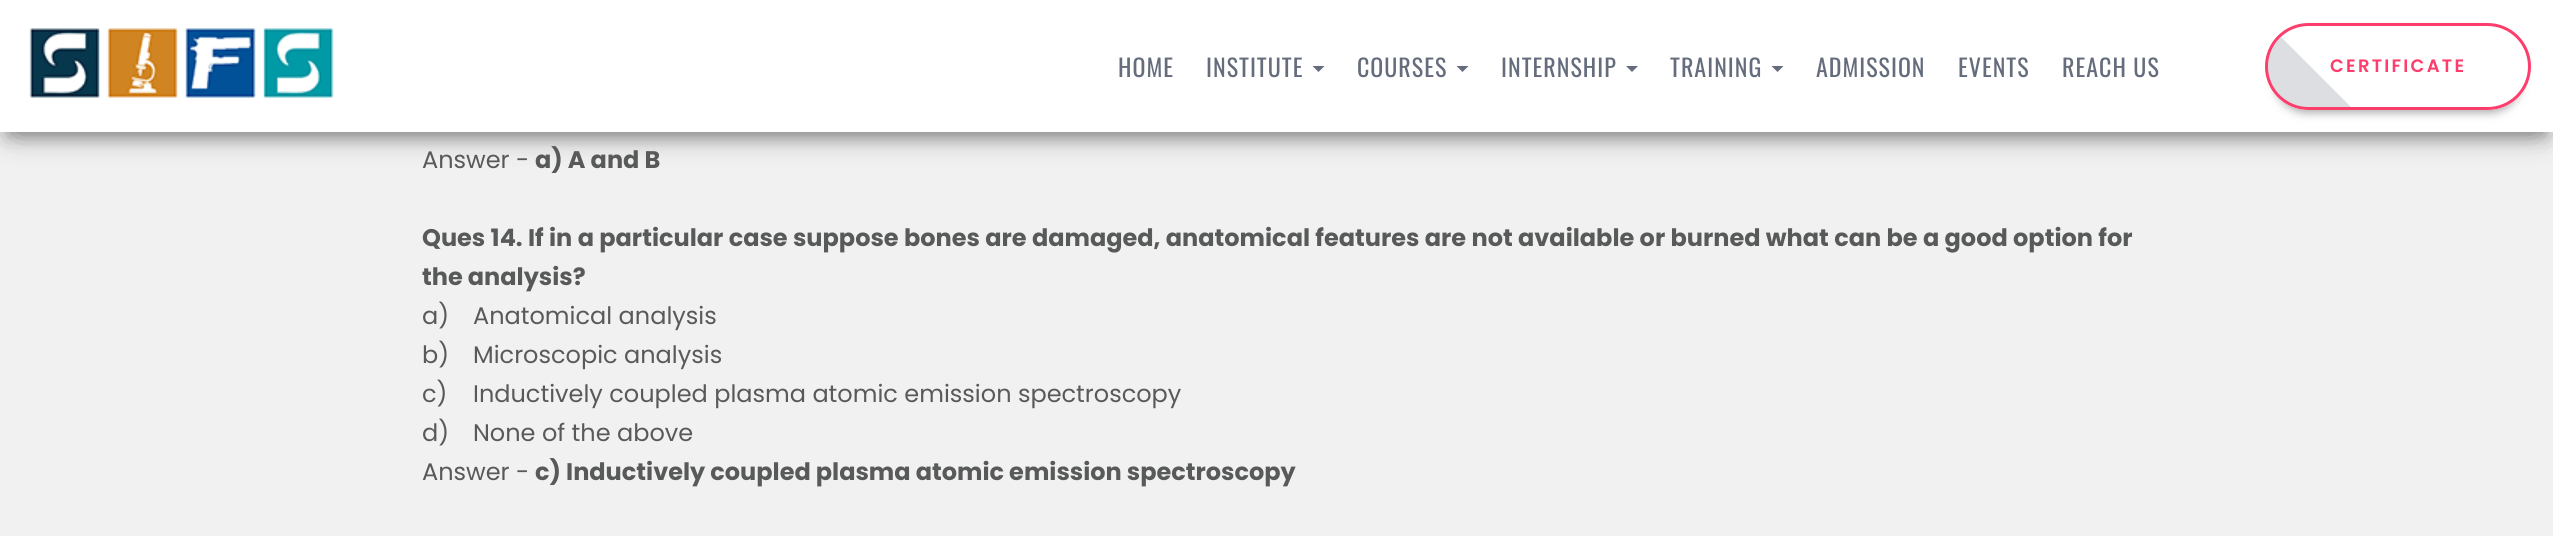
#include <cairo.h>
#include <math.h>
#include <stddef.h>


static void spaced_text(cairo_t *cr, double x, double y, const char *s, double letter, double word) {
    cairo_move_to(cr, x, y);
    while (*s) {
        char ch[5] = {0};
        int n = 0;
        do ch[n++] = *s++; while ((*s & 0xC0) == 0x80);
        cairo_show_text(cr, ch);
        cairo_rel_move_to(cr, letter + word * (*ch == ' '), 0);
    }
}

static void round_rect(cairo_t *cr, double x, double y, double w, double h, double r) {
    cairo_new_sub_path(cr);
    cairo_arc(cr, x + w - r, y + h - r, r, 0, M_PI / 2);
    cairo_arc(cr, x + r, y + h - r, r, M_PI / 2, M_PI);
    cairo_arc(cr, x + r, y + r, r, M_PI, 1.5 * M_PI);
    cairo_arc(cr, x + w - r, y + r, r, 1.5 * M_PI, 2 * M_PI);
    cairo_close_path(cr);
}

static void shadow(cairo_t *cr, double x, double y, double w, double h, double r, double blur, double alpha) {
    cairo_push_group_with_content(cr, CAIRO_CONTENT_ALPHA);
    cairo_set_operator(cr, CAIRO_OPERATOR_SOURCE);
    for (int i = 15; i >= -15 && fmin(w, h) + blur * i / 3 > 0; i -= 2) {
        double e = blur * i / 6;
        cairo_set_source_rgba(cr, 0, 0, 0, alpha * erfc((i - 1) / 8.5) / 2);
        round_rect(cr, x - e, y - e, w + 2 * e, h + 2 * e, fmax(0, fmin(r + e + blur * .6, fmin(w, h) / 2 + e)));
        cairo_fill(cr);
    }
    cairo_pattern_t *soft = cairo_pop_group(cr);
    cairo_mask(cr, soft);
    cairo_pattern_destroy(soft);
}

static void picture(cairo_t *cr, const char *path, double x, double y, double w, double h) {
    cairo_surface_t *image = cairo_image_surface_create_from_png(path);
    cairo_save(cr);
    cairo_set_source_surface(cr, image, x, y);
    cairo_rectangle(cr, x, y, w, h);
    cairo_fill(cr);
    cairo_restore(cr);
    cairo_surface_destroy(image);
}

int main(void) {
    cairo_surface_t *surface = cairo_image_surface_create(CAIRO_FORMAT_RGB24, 2553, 536);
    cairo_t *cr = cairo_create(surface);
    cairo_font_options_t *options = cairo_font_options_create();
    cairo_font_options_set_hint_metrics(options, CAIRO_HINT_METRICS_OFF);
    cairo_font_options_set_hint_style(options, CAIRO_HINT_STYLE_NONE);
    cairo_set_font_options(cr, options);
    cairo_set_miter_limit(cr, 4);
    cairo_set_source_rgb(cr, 0.945, 0.945, 0.945);
    cairo_paint(cr);
    cairo_set_source_rgb(cr, 0, 0, 0);
    shadow(cr, 8, 20, 2538, 117, 0, 7.5, 0.2);
    shadow(cr, 0, 5, 2553, 132, 0, 15, 0.12);
    shadow(cr, 18, 33, 2517, 96, 0, 15, 0.42);
    cairo_set_source_rgb(cr, 1, 1, 1);
    cairo_rectangle(cr, 0, 0, 2553, 132);
    cairo_fill(cr);
    picture(cr, "img1.png", 29, 28, 305, 70);
    cairo_select_font_face(cr, "Oswald", CAIRO_FONT_SLANT_NORMAL, CAIRO_FONT_WEIGHT_NORMAL);
    cairo_set_font_size(cr, 24);
    cairo_set_source_rgb(cr, 0.396, 0.427, 0.49);
    spaced_text(cr, 1118, 77, "HOME", 1, 0);
    spaced_text(cr, 1206, 77, "INSTITUTE", 1, 0);
    cairo_new_path(cr);
    cairo_move_to(cr, 1312.5, 66);
    cairo_line_to(cr, 1324.5, 66);
    cairo_line_to(cr, 1318.5, 72);
    cairo_close_path(cr);
    cairo_fill(cr);
    spaced_text(cr, 1357, 77, "COURSES", 1, 0);
    cairo_new_path(cr);
    cairo_move_to(cr, 1456.5, 66);
    cairo_line_to(cr, 1468.5, 66);
    cairo_line_to(cr, 1462.5, 72);
    cairo_close_path(cr);
    cairo_fill(cr);
    spaced_text(cr, 1501, 77, "INTERNSHIP", 1, 0);
    cairo_new_path(cr);
    cairo_move_to(cr, 1626, 66);
    cairo_line_to(cr, 1638, 66);
    cairo_line_to(cr, 1632, 72);
    cairo_close_path(cr);
    cairo_fill(cr);
    spaced_text(cr, 1670, 77, "TRAINING", 1, 0);
    cairo_new_path(cr);
    cairo_move_to(cr, 1771.5, 66);
    cairo_line_to(cr, 1783.5, 66);
    cairo_line_to(cr, 1777.5, 72);
    cairo_close_path(cr);
    cairo_fill(cr);
    spaced_text(cr, 1816, 77, "ADMISSION", 1, 0);
    spaced_text(cr, 1958, 77, "EVENTS", 1, 0);
    spaced_text(cr, 2062, 77, "REACH US", 1, 0);
    cairo_save(cr);
    cairo_set_fill_rule(cr, CAIRO_FILL_RULE_EVEN_ODD);
    cairo_new_path(cr);
    cairo_move_to(cr, 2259, 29);
    cairo_line_to(cr, 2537, 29);
    cairo_line_to(cr, 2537, 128);
    cairo_line_to(cr, 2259, 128);
    cairo_close_path(cr);
    cairo_move_to(cr, 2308.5, 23);
    cairo_line_to(cr, 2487.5, 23);
    cairo_curve_to(cr, 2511.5, 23, 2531, 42.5, 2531, 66.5);
    cairo_curve_to(cr, 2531, 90.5, 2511.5, 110, 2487.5, 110);
    cairo_line_to(cr, 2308.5, 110);
    cairo_curve_to(cr, 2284.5, 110, 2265, 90.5, 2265, 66.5);
    cairo_curve_to(cr, 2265, 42.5, 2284.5, 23, 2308.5, 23);
    cairo_close_path(cr);
    cairo_clip(cr);
    cairo_set_source_rgb(cr, 0.196, 0.2, 0.2);
    shadow(cr, 2274, 44, 248, 69, 34.5, 4.5, 0.4);
    cairo_restore(cr);
    round_rect(cr, 2266.5, 24.5, 263, 84, 42);
    cairo_set_source_rgb(cr, 0.992, 0.239, 0.42);
    cairo_set_line_width(cr, 3);
    cairo_stroke(cr);
    cairo_select_font_face(cr, "Poppins SemiBold", CAIRO_FONT_SLANT_NORMAL, CAIRO_FONT_WEIGHT_NORMAL);
    cairo_set_font_size(cr, 18);
    spaced_text(cr, 2330, 72, "CERTIFICATE", 2.25, 0);
    cairo_set_source_rgba(cr, 0.106, 0.153, 0.239, 0.15);
    cairo_new_path(cr);
    cairo_move_to(cr, 2281, 37);
    cairo_line_to(cr, 2351, 107);
    cairo_line_to(cr, 2308, 107);
    cairo_curve_to(cr, 2286, 107, 2268, 89, 2268, 66);
    cairo_curve_to(cr, 2268, 55, 2273, 44, 2281, 37);
    cairo_close_path(cr);
    cairo_fill(cr);
    cairo_select_font_face(cr, "Poppins", CAIRO_FONT_SLANT_NORMAL, CAIRO_FONT_WEIGHT_NORMAL);
    cairo_set_font_size(cr, 24);
    cairo_set_source_rgb(cr, 0.345, 0.349, 0.349);
    cairo_move_to(cr, 422, 168);
    cairo_show_text(cr, "Answer -");
    cairo_select_font_face(cr, "Poppins", CAIRO_FONT_SLANT_NORMAL, CAIRO_FONT_WEIGHT_BOLD);
    cairo_move_to(cr, 535, 168);
    cairo_show_text(cr, "a) A and B");
    spaced_text(cr, 422, 246, "Ques 14. If in a particular case suppose bones are damaged, anatomical features are not available or burned what can be a good option for", 0, 0.25);
    cairo_move_to(cr, 422, 285);
    cairo_show_text(cr, "the analysis?");
    cairo_select_font_face(cr, "Poppins", CAIRO_FONT_SLANT_NORMAL, CAIRO_FONT_WEIGHT_NORMAL);
    cairo_move_to(cr, 422, 324);
    cairo_show_text(cr, "a)");
    cairo_move_to(cr, 473, 324);
    cairo_show_text(cr, "Anatomical analysis");
    cairo_move_to(cr, 422, 363);
    cairo_show_text(cr, "b)");
    cairo_move_to(cr, 473, 363);
    cairo_show_text(cr, "Microscopic analysis");
    cairo_move_to(cr, 422, 402);
    cairo_show_text(cr, "c)");
    cairo_move_to(cr, 473, 402);
    cairo_show_text(cr, "Inductively coupled plasma atomic emission spectroscopy");
    cairo_move_to(cr, 422, 441);
    cairo_show_text(cr, "d)");
    cairo_move_to(cr, 473, 441);
    cairo_show_text(cr, "None of the above");
    cairo_move_to(cr, 422, 480);
    cairo_show_text(cr, "Answer -");
    cairo_select_font_face(cr, "Poppins", CAIRO_FONT_SLANT_NORMAL, CAIRO_FONT_WEIGHT_BOLD);
    cairo_move_to(cr, 535, 480);
    cairo_show_text(cr, "c) Inductively coupled plasma atomic emission spectroscopy");
    cairo_surface_write_to_png(surface, "page.png");
    cairo_font_options_destroy(options);
    cairo_destroy(cr);
    cairo_surface_destroy(surface);
    return 0;
}
